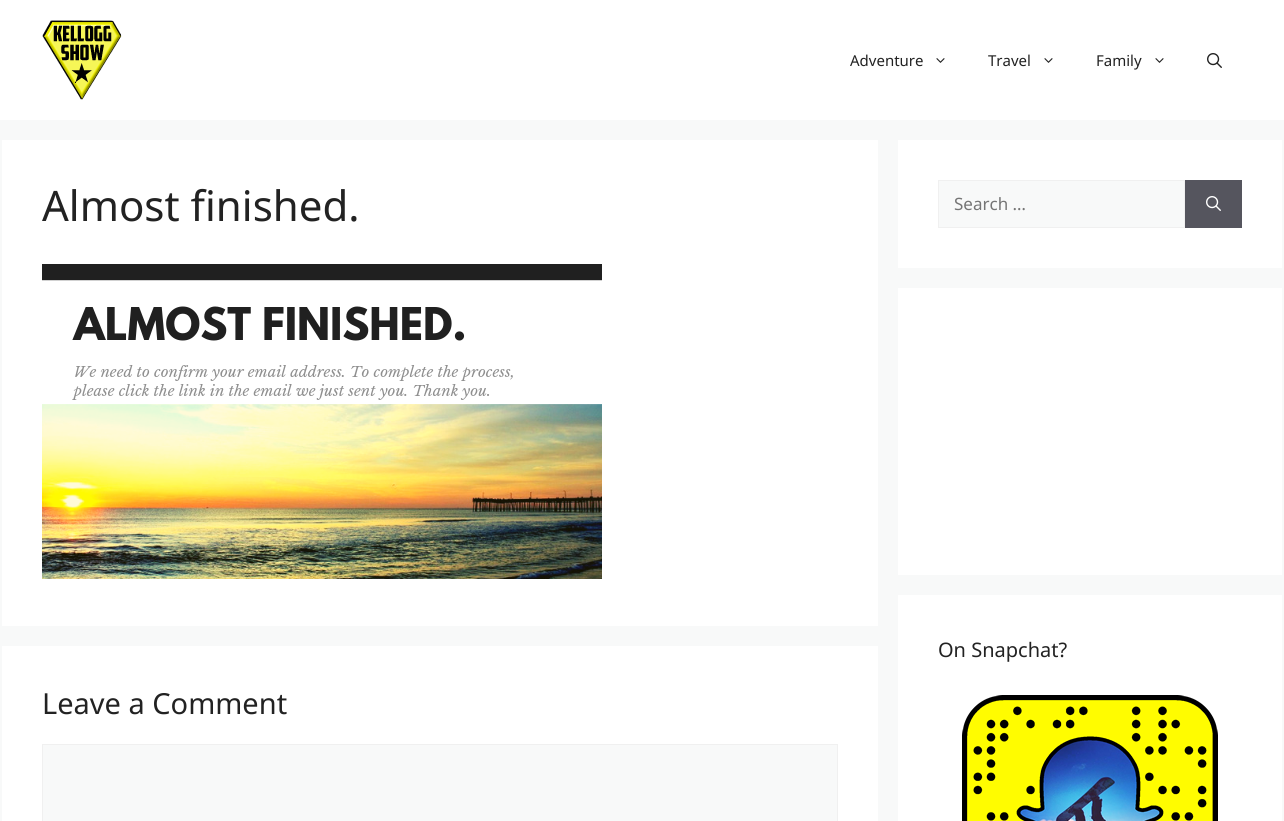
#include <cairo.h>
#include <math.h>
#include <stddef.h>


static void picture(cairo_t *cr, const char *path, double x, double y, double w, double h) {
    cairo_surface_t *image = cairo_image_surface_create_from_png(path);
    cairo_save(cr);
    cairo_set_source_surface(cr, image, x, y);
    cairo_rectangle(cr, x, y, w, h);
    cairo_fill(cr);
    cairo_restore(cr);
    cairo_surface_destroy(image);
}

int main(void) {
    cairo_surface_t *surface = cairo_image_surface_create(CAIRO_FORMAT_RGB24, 1284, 821);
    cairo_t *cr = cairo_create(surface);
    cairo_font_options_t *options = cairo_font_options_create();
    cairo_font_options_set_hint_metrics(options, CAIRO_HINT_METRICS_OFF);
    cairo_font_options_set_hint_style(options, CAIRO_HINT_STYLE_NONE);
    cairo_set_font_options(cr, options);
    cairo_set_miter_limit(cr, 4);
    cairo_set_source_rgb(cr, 0.969, 0.973, 0.976);
    cairo_paint(cr);
    cairo_set_source_rgb(cr, 1, 1, 1);
    cairo_rectangle(cr, 0, 0, 1284, 120);
    cairo_fill(cr);
    picture(cr, "img1.png", 42, 20, 80, 80);
    cairo_select_font_face(cr, "Noto Sans", CAIRO_FONT_SLANT_NORMAL, CAIRO_FONT_WEIGHT_NORMAL);
    cairo_set_font_size(cr, 15);
    cairo_set_source_rgb(cr, 0.133, 0.133, 0.133);
    cairo_move_to(cr, 850, 66);
    cairo_show_text(cr, "Adventure");
    picture(cr, "img2.png", 936, 58, 9, 5);
    cairo_move_to(cr, 988, 66);
    cairo_show_text(cr, "Travel");
    picture(cr, "img2.png", 1044, 58, 9, 5);
    cairo_move_to(cr, 1096, 66);
    cairo_show_text(cr, "Family");
    picture(cr, "img2.png", 1155, 58, 9, 5);
    picture(cr, "img3.png", 1207, 53, 15, 15);
    cairo_set_source_rgb(cr, 1, 1, 1);
    cairo_rectangle(cr, 2, 140, 876, 486);
    cairo_fill(cr);
    cairo_set_font_size(cr, 42);
    cairo_set_source_rgb(cr, 0.133, 0.133, 0.133);
    cairo_move_to(cr, 42, 221);
    cairo_show_text(cr, "Almost finished.");
    picture(cr, "img4.png", 42, 264, 560, 315);
    cairo_set_source_rgb(cr, 1, 1, 1);
    cairo_rectangle(cr, 2, 646, 876, 175);
    cairo_fill(cr);
    cairo_set_font_size(cr, 29);
    cairo_set_source_rgb(cr, 0.133, 0.133, 0.133);
    cairo_move_to(cr, 42, 714);
    cairo_show_text(cr, "Leave a Comment");
    cairo_set_source_rgb(cr, 0.969, 0.973, 0.976);
    cairo_rectangle(cr, 42.5, 744.5, 795, 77);
    cairo_fill_preserve(cr);
    cairo_set_source_rgb(cr, 0.941, 0.941, 0.941);
    cairo_set_line_width(cr, 1);
    cairo_stroke(cr);
    cairo_set_source_rgb(cr, 1, 1, 1);
    cairo_rectangle(cr, 898, 140, 384, 128);
    cairo_fill(cr);
    cairo_set_source_rgb(cr, 0.969, 0.973, 0.976);
    cairo_rectangle(cr, 938.5, 180.5, 246, 47);
    cairo_fill_preserve(cr);
    cairo_set_source_rgb(cr, 0.941, 0.941, 0.941);
    cairo_stroke(cr);
    cairo_set_font_size(cr, 17);
    cairo_set_source_rgb(cr, 0.459, 0.459, 0.459);
    cairo_move_to(cr, 954, 210);
    cairo_show_text(cr, "Search …");
    cairo_set_source_rgb(cr, 0.333, 0.333, 0.369);
    cairo_rectangle(cr, 1185, 180, 57, 48);
    cairo_fill(cr);
    picture(cr, "img5.png", 1206, 196, 15, 15);
    cairo_set_source_rgb(cr, 1, 1, 1);
    cairo_rectangle(cr, 898, 288, 384, 287);
    cairo_fill(cr);
    cairo_rectangle(cr, 898, 595, 384, 226);
    cairo_fill(cr);
    cairo_set_font_size(cr, 20);
    cairo_set_source_rgb(cr, 0.133, 0.133, 0.133);
    cairo_move_to(cr, 938, 657);
    cairo_show_text(cr, "On Snapchat?");
    picture(cr, "img6.png", 962, 695, 256, 126);
    cairo_surface_write_to_png(surface, "page.png");
    cairo_font_options_destroy(options);
    cairo_destroy(cr);
    cairo_surface_destroy(surface);
    return 0;
}
